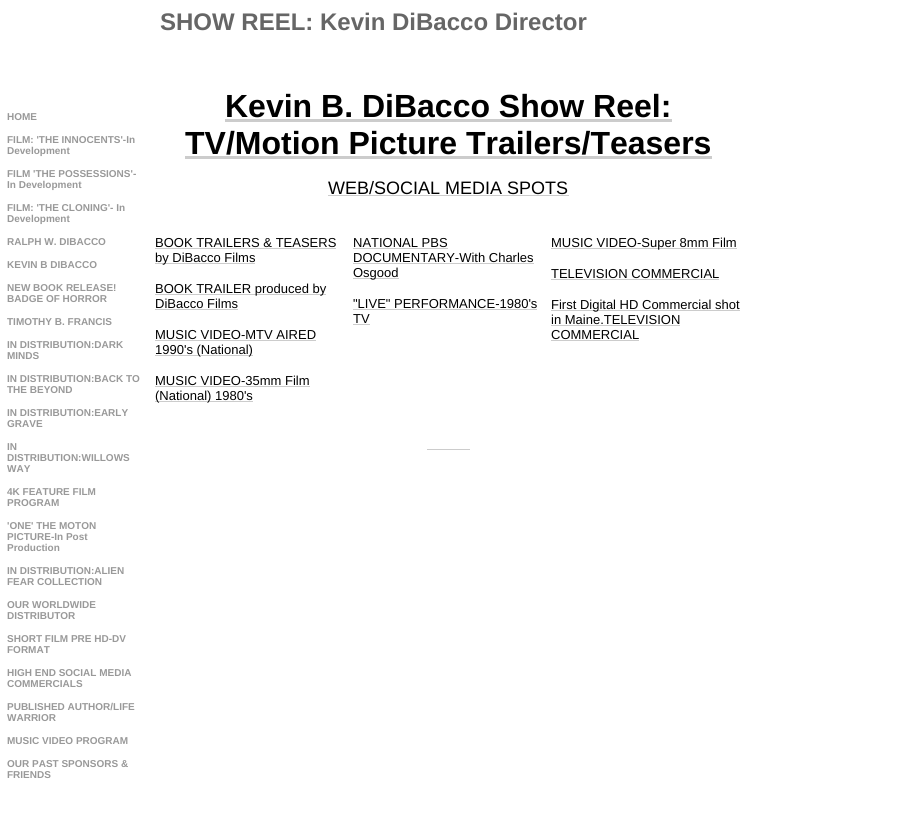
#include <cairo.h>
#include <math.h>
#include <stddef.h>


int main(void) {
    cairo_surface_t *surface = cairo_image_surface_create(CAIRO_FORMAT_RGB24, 899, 815);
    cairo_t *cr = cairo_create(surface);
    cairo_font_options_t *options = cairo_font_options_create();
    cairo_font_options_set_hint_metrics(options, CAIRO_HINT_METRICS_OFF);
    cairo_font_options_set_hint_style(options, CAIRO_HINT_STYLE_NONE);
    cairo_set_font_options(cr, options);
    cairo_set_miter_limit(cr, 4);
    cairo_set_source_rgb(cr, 1, 1, 1);
    cairo_paint(cr);
    cairo_select_font_face(cr, "Liberation Sans", CAIRO_FONT_SLANT_NORMAL, CAIRO_FONT_WEIGHT_BOLD);
    cairo_set_font_size(cr, 24);
    cairo_set_source_rgb(cr, 0.4, 0.4, 0.4);
    cairo_move_to(cr, 160, 30);
    cairo_show_text(cr, "SHOW REEL: Kevin DiBacco Director");
    cairo_set_font_size(cr, 10);
    cairo_set_source_rgb(cr, 0.6, 0.6, 0.6);
    cairo_move_to(cr, 7, 120);
    cairo_show_text(cr, "HOME");
    cairo_move_to(cr, 7, 143);
    cairo_show_text(cr, "FILM: 'THE INNOCENTS'-In");
    cairo_move_to(cr, 7, 154);
    cairo_show_text(cr, "Development");
    cairo_move_to(cr, 7, 177);
    cairo_show_text(cr, "FILM 'THE POSSESSIONS'-");
    cairo_move_to(cr, 7, 188);
    cairo_show_text(cr, "In Development");
    cairo_move_to(cr, 7, 211);
    cairo_show_text(cr, "FILM: 'THE CLONING'- In");
    cairo_move_to(cr, 7, 222);
    cairo_show_text(cr, "Development");
    cairo_move_to(cr, 7, 245);
    cairo_show_text(cr, "RALPH W. DIBACCO");
    cairo_move_to(cr, 7, 268);
    cairo_show_text(cr, "KEVIN B DIBACCO");
    cairo_move_to(cr, 7, 291);
    cairo_show_text(cr, "NEW BOOK RELEASE!");
    cairo_move_to(cr, 7, 302);
    cairo_show_text(cr, "BADGE OF HORROR");
    cairo_move_to(cr, 7, 325);
    cairo_show_text(cr, "TIMOTHY B. FRANCIS");
    cairo_move_to(cr, 7, 348);
    cairo_show_text(cr, "IN DISTRIBUTION:DARK");
    cairo_move_to(cr, 7, 359);
    cairo_show_text(cr, "MINDS");
    cairo_move_to(cr, 7, 382);
    cairo_show_text(cr, "IN DISTRIBUTION:BACK TO");
    cairo_move_to(cr, 7, 393);
    cairo_show_text(cr, "THE BEYOND");
    cairo_move_to(cr, 7, 416);
    cairo_show_text(cr, "IN DISTRIBUTION:EARLY");
    cairo_move_to(cr, 7, 427);
    cairo_show_text(cr, "GRAVE");
    cairo_move_to(cr, 7, 450);
    cairo_show_text(cr, "IN");
    cairo_move_to(cr, 7, 461);
    cairo_show_text(cr, "DISTRIBUTION:WILLOWS");
    cairo_move_to(cr, 7, 472);
    cairo_show_text(cr, "WAY");
    cairo_move_to(cr, 7, 495);
    cairo_show_text(cr, "4K FEATURE FILM");
    cairo_move_to(cr, 7, 506);
    cairo_show_text(cr, "PROGRAM");
    cairo_move_to(cr, 7, 529);
    cairo_show_text(cr, "'ONE' THE MOTON");
    cairo_move_to(cr, 7, 540);
    cairo_show_text(cr, "PICTURE-In Post");
    cairo_move_to(cr, 7, 551);
    cairo_show_text(cr, "Production");
    cairo_move_to(cr, 7, 574);
    cairo_show_text(cr, "IN DISTRIBUTION:ALIEN");
    cairo_move_to(cr, 7, 585);
    cairo_show_text(cr, "FEAR COLLECTION");
    cairo_move_to(cr, 7, 608);
    cairo_show_text(cr, "OUR WORLDWIDE");
    cairo_move_to(cr, 7, 619);
    cairo_show_text(cr, "DISTRIBUTOR");
    cairo_move_to(cr, 7, 642);
    cairo_show_text(cr, "SHORT FILM PRE HD-DV");
    cairo_move_to(cr, 7, 653);
    cairo_show_text(cr, "FORMAT");
    cairo_move_to(cr, 7, 676);
    cairo_show_text(cr, "HIGH END SOCIAL MEDIA");
    cairo_move_to(cr, 7, 687);
    cairo_show_text(cr, "COMMERCIALS");
    cairo_move_to(cr, 7, 710);
    cairo_show_text(cr, "PUBLISHED AUTHOR/LIFE");
    cairo_move_to(cr, 7, 721);
    cairo_show_text(cr, "WARRIOR");
    cairo_move_to(cr, 7, 744);
    cairo_show_text(cr, "MUSIC VIDEO PROGRAM");
    cairo_move_to(cr, 7, 767);
    cairo_show_text(cr, "OUR PAST SPONSORS &");
    cairo_move_to(cr, 7, 778);
    cairo_show_text(cr, "FRIENDS");
    cairo_set_font_size(cr, 32);
    cairo_set_source_rgb(cr, 0, 0, 0);
    cairo_move_to(cr, 225, 117);
    cairo_show_text(cr, "Kevin B. DiBacco Show Reel:");
    cairo_set_source_rgb(cr, 0.8, 0.8, 0.8);
    cairo_rectangle(cr, 225, 119, 447, 3);
    cairo_fill(cr);
    cairo_set_source_rgb(cr, 0, 0, 0);
    cairo_move_to(cr, 185, 154);
    cairo_show_text(cr, "TV/Motion Picture Trailers/Teasers");
    cairo_set_source_rgb(cr, 0.8, 0.8, 0.8);
    cairo_rectangle(cr, 185, 156, 527, 3);
    cairo_fill(cr);
    cairo_select_font_face(cr, "Liberation Sans", CAIRO_FONT_SLANT_NORMAL, CAIRO_FONT_WEIGHT_NORMAL);
    cairo_set_font_size(cr, 18);
    cairo_set_source_rgb(cr, 0, 0, 0);
    cairo_move_to(cr, 328, 194);
    cairo_show_text(cr, "WEB/SOCIAL MEDIA SPOTS");
    cairo_set_source_rgb(cr, 0.8, 0.8, 0.8);
    cairo_rectangle(cr, 328, 195, 241, 1);
    cairo_fill(cr);
    cairo_set_font_size(cr, 13);
    cairo_set_source_rgb(cr, 0, 0, 0);
    cairo_move_to(cr, 155, 247);
    cairo_show_text(cr, "BOOK TRAILERS & TEASERS");
    cairo_set_source_rgb(cr, 0.8, 0.8, 0.8);
    cairo_rectangle(cr, 155, 248, 181, 1);
    cairo_fill(cr);
    cairo_rectangle(cr, 155, 263, 100, 1);
    cairo_fill(cr);
    cairo_set_source_rgb(cr, 0, 0, 0);
    cairo_move_to(cr, 155, 262);
    cairo_show_text(cr, "by DiBacco Films");
    cairo_set_source_rgb(cr, 0.8, 0.8, 0.8);
    cairo_rectangle(cr, 155, 294, 171, 1);
    cairo_fill(cr);
    cairo_set_source_rgb(cr, 0, 0, 0);
    cairo_move_to(cr, 155, 293);
    cairo_show_text(cr, "BOOK TRAILER produced by");
    cairo_move_to(cr, 155, 308);
    cairo_show_text(cr, "DiBacco Films");
    cairo_set_source_rgb(cr, 0.8, 0.8, 0.8);
    cairo_rectangle(cr, 155, 309, 83, 1);
    cairo_fill(cr);
    cairo_set_source_rgb(cr, 0, 0, 0);
    cairo_move_to(cr, 155, 339);
    cairo_show_text(cr, "MUSIC VIDEO-MTV AIRED");
    cairo_set_source_rgb(cr, 0.8, 0.8, 0.8);
    cairo_rectangle(cr, 155, 340, 161, 1);
    cairo_fill(cr);
    cairo_rectangle(cr, 155, 355, 98, 1);
    cairo_fill(cr);
    cairo_set_source_rgb(cr, 0, 0, 0);
    cairo_move_to(cr, 155, 354);
    cairo_show_text(cr, "1990's (National)");
    cairo_move_to(cr, 155, 385);
    cairo_show_text(cr, "MUSIC VIDEO-35mm Film");
    cairo_set_source_rgb(cr, 0.8, 0.8, 0.8);
    cairo_rectangle(cr, 155, 386, 155, 1);
    cairo_fill(cr);
    cairo_rectangle(cr, 155, 401, 98, 1);
    cairo_fill(cr);
    cairo_set_source_rgb(cr, 0, 0, 0);
    cairo_move_to(cr, 155, 400);
    cairo_show_text(cr, "(National) 1980's");
    cairo_move_to(cr, 353, 247);
    cairo_show_text(cr, "NATIONAL PBS");
    cairo_set_source_rgb(cr, 0.8, 0.8, 0.8);
    cairo_rectangle(cr, 353, 248, 95, 1);
    cairo_fill(cr);
    cairo_set_source_rgb(cr, 0, 0, 0);
    cairo_move_to(cr, 353, 262);
    cairo_show_text(cr, "DOCUMENTARY-With Charles");
    cairo_set_source_rgb(cr, 0.8, 0.8, 0.8);
    cairo_rectangle(cr, 353, 263, 181, 1);
    cairo_fill(cr);
    cairo_rectangle(cr, 353, 278, 46, 1);
    cairo_fill(cr);
    cairo_set_source_rgb(cr, 0, 0, 0);
    cairo_move_to(cr, 353, 277);
    cairo_show_text(cr, "Osgood");
    cairo_move_to(cr, 353, 308);
    cairo_show_text(cr, "\"LIVE\" PERFORMANCE-1980's");
    cairo_set_source_rgb(cr, 0.8, 0.8, 0.8);
    cairo_rectangle(cr, 353, 309, 184, 1);
    cairo_fill(cr);
    cairo_set_source_rgb(cr, 0, 0, 0);
    cairo_move_to(cr, 353, 323);
    cairo_show_text(cr, "TV");
    cairo_set_source_rgb(cr, 0.8, 0.8, 0.8);
    cairo_rectangle(cr, 353, 324, 17, 1);
    cairo_fill(cr);
    cairo_rectangle(cr, 551, 248, 186, 1);
    cairo_fill(cr);
    cairo_set_source_rgb(cr, 0, 0, 0);
    cairo_move_to(cr, 551, 247);
    cairo_show_text(cr, "MUSIC VIDEO-Super 8mm Film");
    cairo_move_to(cr, 551, 278);
    cairo_show_text(cr, "TELEVISION COMMERCIAL");
    cairo_set_source_rgb(cr, 0.8, 0.8, 0.8);
    cairo_rectangle(cr, 551, 279, 168, 1);
    cairo_fill(cr);
    cairo_rectangle(cr, 551, 310, 189, 1);
    cairo_fill(cr);
    cairo_set_source_rgb(cr, 0, 0, 0);
    cairo_move_to(cr, 551, 309);
    cairo_show_text(cr, "First Digital HD Commercial shot");
    cairo_move_to(cr, 551, 324);
    cairo_show_text(cr, "in Maine.TELEVISION");
    cairo_set_source_rgb(cr, 0.8, 0.8, 0.8);
    cairo_rectangle(cr, 551, 325, 129, 1);
    cairo_fill(cr);
    cairo_set_source_rgb(cr, 0, 0, 0);
    cairo_move_to(cr, 551, 339);
    cairo_show_text(cr, "COMMERCIAL");
    cairo_set_source_rgb(cr, 0.8, 0.8, 0.8);
    cairo_rectangle(cr, 551, 340, 88, 1);
    cairo_fill(cr);
    cairo_rectangle(cr, 427, 449, 43, 1);
    cairo_fill(cr);
    cairo_surface_write_to_png(surface, "page.png");
    cairo_font_options_destroy(options);
    cairo_destroy(cr);
    cairo_surface_destroy(surface);
    return 0;
}
